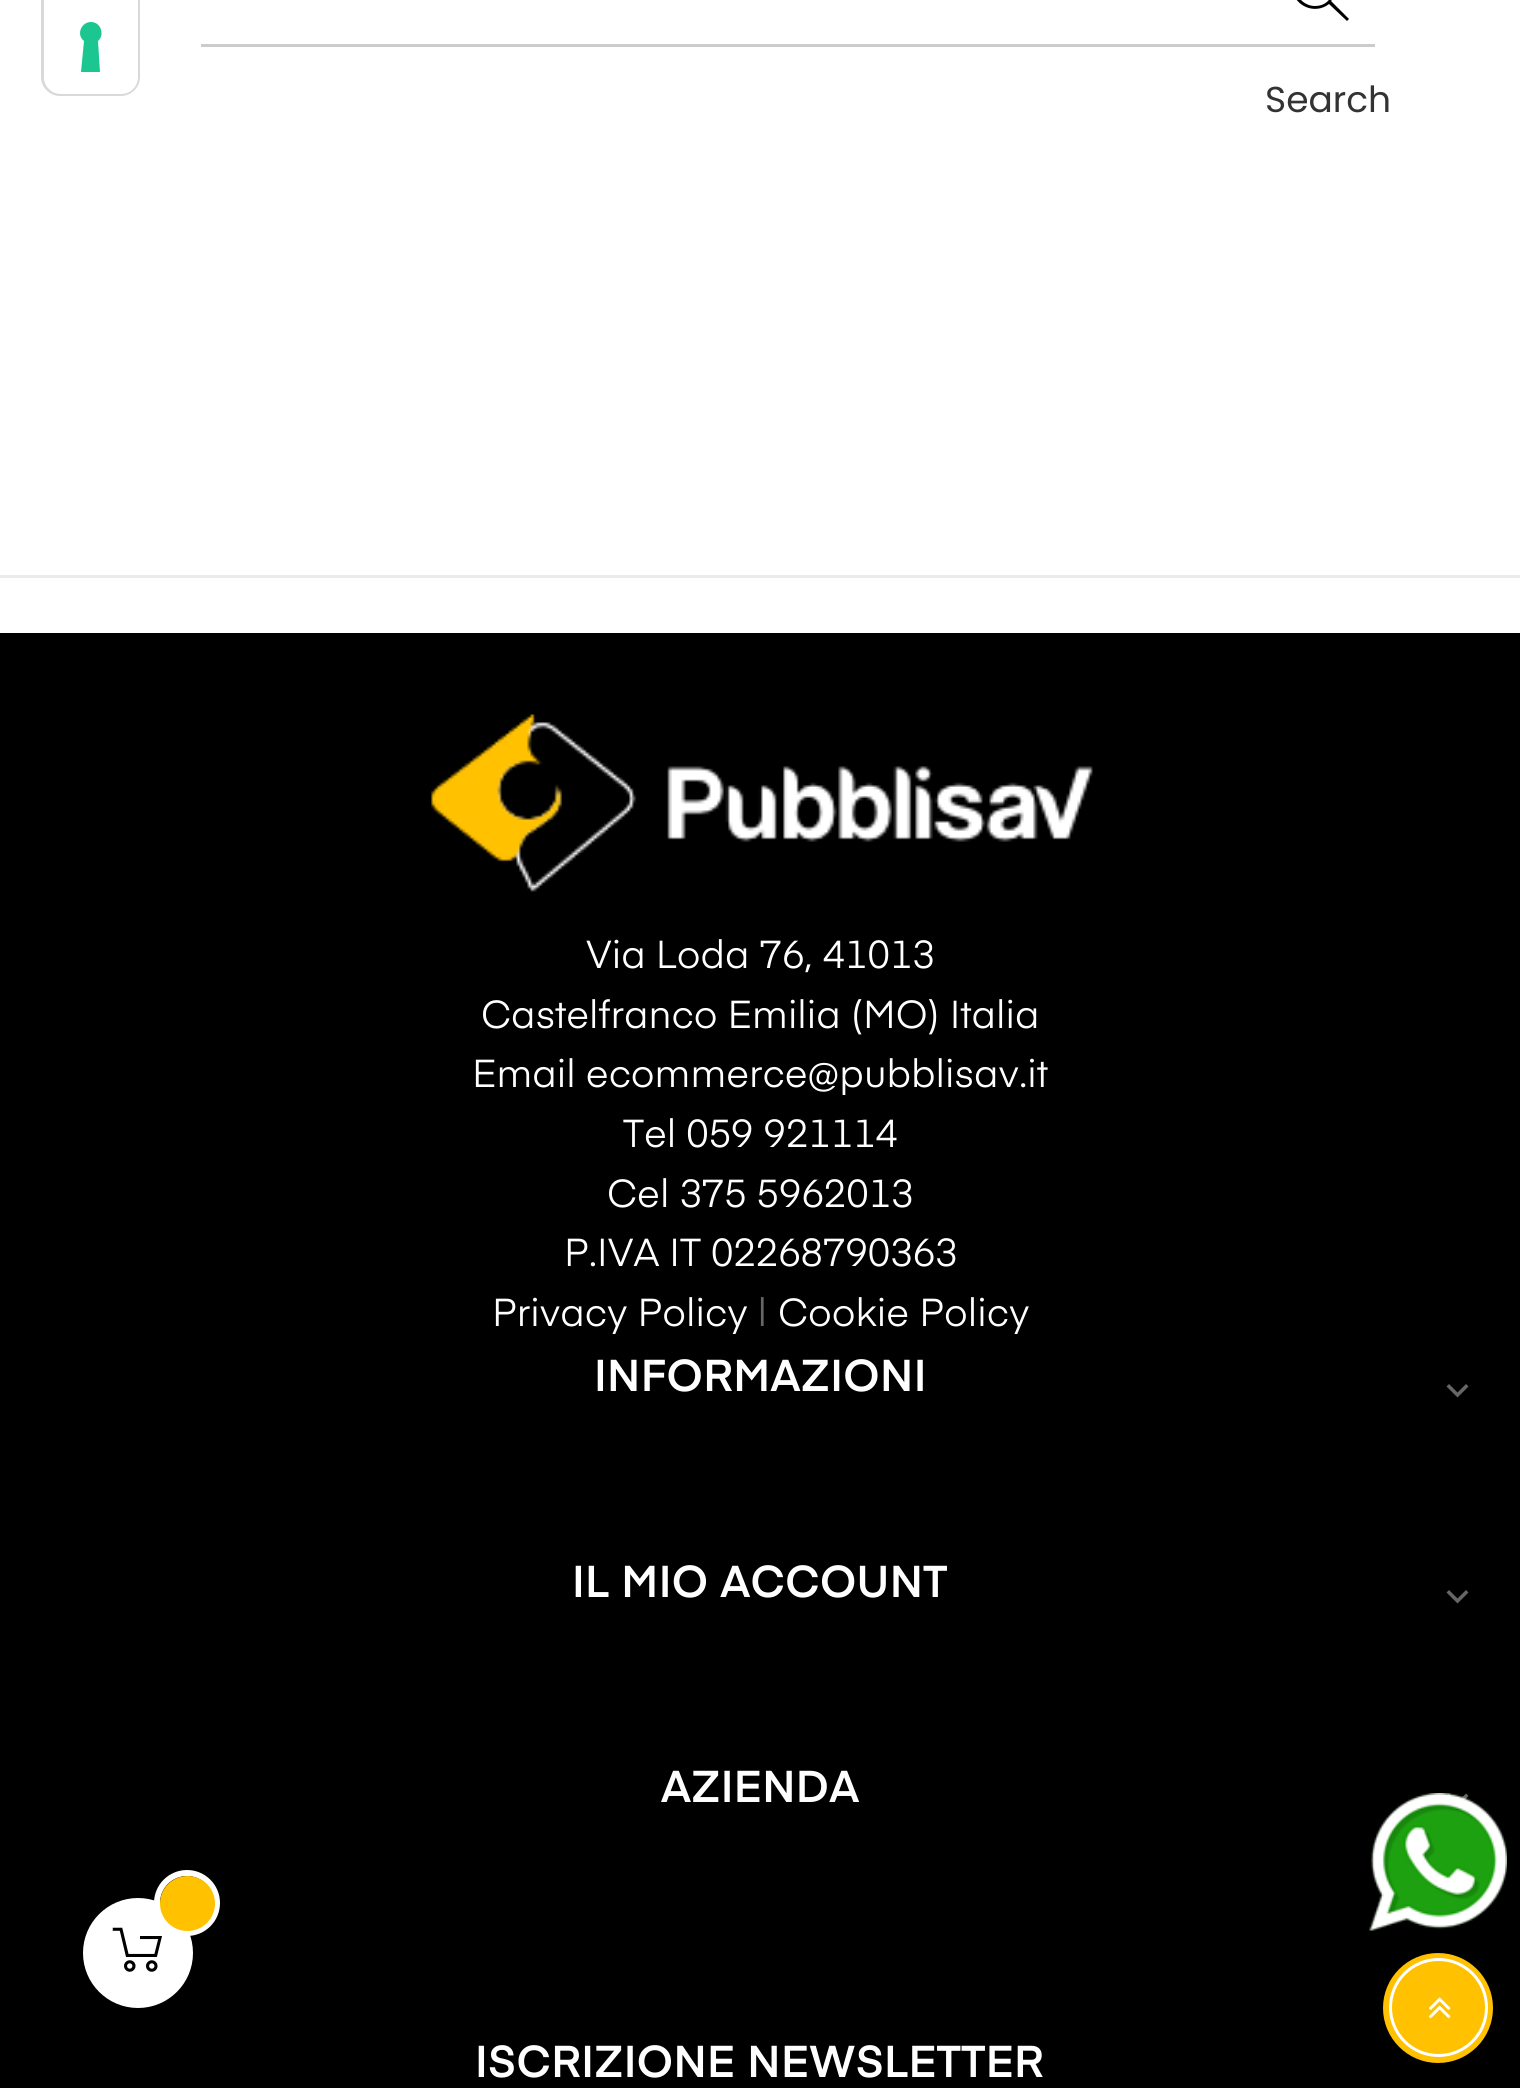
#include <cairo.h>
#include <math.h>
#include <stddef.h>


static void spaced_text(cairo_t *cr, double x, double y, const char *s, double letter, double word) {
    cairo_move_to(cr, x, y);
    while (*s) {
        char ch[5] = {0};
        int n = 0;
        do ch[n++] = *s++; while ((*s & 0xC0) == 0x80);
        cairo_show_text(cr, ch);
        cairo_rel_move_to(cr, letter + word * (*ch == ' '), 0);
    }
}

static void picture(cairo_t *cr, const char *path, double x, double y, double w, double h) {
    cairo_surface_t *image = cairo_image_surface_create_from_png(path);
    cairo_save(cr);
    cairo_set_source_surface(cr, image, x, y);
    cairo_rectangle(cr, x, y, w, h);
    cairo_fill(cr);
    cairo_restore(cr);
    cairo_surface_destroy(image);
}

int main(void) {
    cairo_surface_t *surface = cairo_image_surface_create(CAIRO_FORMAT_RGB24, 1520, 2088);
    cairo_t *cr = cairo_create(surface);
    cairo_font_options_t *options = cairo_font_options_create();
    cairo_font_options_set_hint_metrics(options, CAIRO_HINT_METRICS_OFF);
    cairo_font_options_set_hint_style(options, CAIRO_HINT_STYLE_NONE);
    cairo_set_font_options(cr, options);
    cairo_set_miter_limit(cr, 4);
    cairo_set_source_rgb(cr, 1, 1, 1);
    cairo_paint(cr);
    cairo_new_path(cr);
    cairo_move_to(cr, 42.5, -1.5);
    cairo_line_to(cr, 138.5, -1.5);
    cairo_line_to(cr, 138.5, 77);
    cairo_curve_to(cr, 138.5, 86.5, 130.5, 94.5, 121, 94.5);
    cairo_line_to(cr, 60, 94.5);
    cairo_curve_to(cr, 50.5, 94.5, 42.5, 86.5, 42.5, 77);
    cairo_close_path(cr);
    cairo_set_source_rgb(cr, 0.851, 0.851, 0.851);
    cairo_set_line_width(cr, 3);
    cairo_stroke(cr);
    cairo_set_source_rgb(cr, 1, 1, 1);
    cairo_new_path(cr);
    cairo_move_to(cr, 44, 0);
    cairo_line_to(cr, 138, 0);
    cairo_line_to(cr, 138, 77);
    cairo_curve_to(cr, 138, 86.5, 130.5, 94, 121, 94);
    cairo_line_to(cr, 61, 94);
    cairo_curve_to(cr, 51.5, 94, 44, 86.5, 44, 77);
    cairo_close_path(cr);
    cairo_fill(cr);
    cairo_set_source_rgb(cr, 0.11, 0.776, 0.569);
    cairo_set_fill_rule(cr, CAIRO_FILL_RULE_EVEN_ODD);
    cairo_new_path(cr);
    cairo_move_to(cr, 91, 22);
    cairo_curve_to(cr, 101, 22, 105, 35, 98, 41);
    cairo_line_to(cr, 100, 72);
    cairo_line_to(cr, 81, 72);
    cairo_line_to(cr, 84, 41);
    cairo_curve_to(cr, 76, 35, 81, 22, 91, 22);
    cairo_close_path(cr);
    cairo_fill(cr);
    cairo_set_source_rgb(cr, 0, 0, 0);
    cairo_rectangle(cr, 0, 633, 1520, 1455);
    cairo_fill(cr);
    cairo_set_source_rgb(cr, 1, 1, 1);
    cairo_arc(cr, 138, 1953, 55, 0, 2 * M_PI);
    cairo_fill(cr);
    picture(cr, "img1.png", 112, 1927, 50, 45);
    cairo_arc(cr, 187, 1903, 30, 0, 2 * M_PI);
    cairo_set_line_width(cr, 6);
    cairo_stroke(cr);
    cairo_set_source_rgb(cr, 1, 0.757, 0);
    cairo_arc(cr, 187.5, 1903.5, 27.5, 0, 2 * M_PI);
    cairo_fill(cr);
    cairo_set_source_rgb(cr, 0.8, 0.8, 0.8);
    cairo_rectangle(cr, 201, 44, 1174, 3);
    cairo_fill(cr);
    cairo_set_source_rgb(cr, 0, 0, 0);
    cairo_set_fill_rule(cr, CAIRO_FILL_RULE_WINDING);
    cairo_new_path(cr);
    cairo_move_to(cr, 1349, 19);
    cairo_line_to(cr, 1331, 1);
    cairo_curve_to(cr, 1336, -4, 1338, -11, 1336, -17);
    cairo_curve_to(cr, 1335, -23, 1332, -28, 1327, -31);
    cairo_curve_to(cr, 1307, -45, 1283, -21, 1296, -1);
    cairo_curve_to(cr, 1304, 10, 1319, 12, 1329, 4);
    cairo_line_to(cr, 1347, 21);
    cairo_close_path(cr);
    cairo_move_to(cr, 1315, 6);
    cairo_curve_to(cr, 1310, 6, 1305, 4, 1301, 0);
    cairo_curve_to(cr, 1290, -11, 1298, -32, 1315, -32);
    cairo_curve_to(cr, 1339, -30, 1339, 6, 1315, 6);
    cairo_close_path(cr);
    cairo_fill(cr);
    cairo_select_font_face(cr, "Poppins", CAIRO_FONT_SLANT_NORMAL, CAIRO_FONT_WEIGHT_NORMAL);
    cairo_set_font_size(cr, 36);
    cairo_set_source_rgb(cr, 0.2, 0.2, 0.2);
    cairo_move_to(cr, 1265, 112);
    cairo_show_text(cr, "Search");
    cairo_set_source_rgb(cr, 0.918, 0.918, 0.918);
    cairo_rectangle(cr, 0, 575, 1520, 3);
    cairo_fill(cr);
    picture(cr, "img2.png", 431, 714, 662, 178);
    cairo_select_font_face(cr, "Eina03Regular", CAIRO_FONT_SLANT_NORMAL, CAIRO_FONT_WEIGHT_NORMAL);
    cairo_set_font_size(cr, 38.5);
    cairo_set_source_rgb(cr, 1, 1, 1);
    cairo_move_to(cr, 586, 968);
    cairo_show_text(cr, "Via Loda 76, 41013");
    cairo_move_to(cr, 481, 1028);
    cairo_show_text(cr, "Castelfranco Emilia (MO) Italia");
    cairo_move_to(cr, 472, 1087);
    cairo_show_text(cr, "Email ecommerce@pubblisav.it");
    cairo_move_to(cr, 623, 1147);
    cairo_show_text(cr, "Tel 059 921114");
    cairo_move_to(cr, 607, 1207);
    cairo_show_text(cr, "Cel 375 5962013");
    cairo_move_to(cr, 564, 1266);
    cairo_show_text(cr, "P.IVA IT 02268790363");
    cairo_move_to(cr, 492, 1326);
    cairo_show_text(cr, "Privacy Policy");
    cairo_set_source_rgb(cr, 0.4, 0.4, 0.4);
    cairo_move_to(cr, 757, 1326);
    cairo_show_text(cr, "|");
    cairo_set_source_rgb(cr, 1, 1, 1);
    cairo_move_to(cr, 778, 1326);
    cairo_show_text(cr, "Cookie Policy");
    cairo_select_font_face(cr, "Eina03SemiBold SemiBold", CAIRO_FONT_SLANT_NORMAL, CAIRO_FONT_WEIGHT_NORMAL);
    cairo_set_font_size(cr, 44);
    spaced_text(cr, 594, 1391, "INFORMAZIONI", 0.4, 0);
    cairo_set_source_rgb(cr, 0.4, 0.4, 0.4);
    cairo_new_path(cr);
    cairo_move_to(cr, 1449, 1384);
    cairo_line_to(cr, 1457.5, 1392.5);
    cairo_line_to(cr, 1466, 1384);
    cairo_line_to(cr, 1468.5, 1386.5);
    cairo_line_to(cr, 1457.5, 1397.5);
    cairo_line_to(cr, 1446.5, 1386.5);
    cairo_close_path(cr);
    cairo_fill(cr);
    cairo_set_source_rgb(cr, 1, 1, 1);
    spaced_text(cr, 572, 1597, "IL MIO ACCOUNT", 0.4, 0);
    cairo_set_source_rgb(cr, 0.4, 0.4, 0.4);
    cairo_new_path(cr);
    cairo_move_to(cr, 1449, 1590);
    cairo_line_to(cr, 1457.5, 1598.5);
    cairo_line_to(cr, 1466, 1590);
    cairo_line_to(cr, 1468.5, 1592.5);
    cairo_line_to(cr, 1457.5, 1603.5);
    cairo_line_to(cr, 1446.5, 1592.5);
    cairo_close_path(cr);
    cairo_fill(cr);
    cairo_set_source_rgb(cr, 1, 1, 1);
    spaced_text(cr, 661, 1802, "AZIENDA", 0.4, 0);
    cairo_set_source_rgb(cr, 0.4, 0.4, 0.4);
    cairo_new_path(cr);
    cairo_move_to(cr, 1449, 1793.5);
    cairo_line_to(cr, 1457.5, 1802);
    cairo_line_to(cr, 1466, 1793.5);
    cairo_line_to(cr, 1468.5, 1796);
    cairo_line_to(cr, 1457.5, 1807);
    cairo_line_to(cr, 1446.5, 1796);
    cairo_close_path(cr);
    cairo_fill(cr);
    cairo_set_source_rgb(cr, 1, 1, 1);
    spaced_text(cr, 475, 2077, "ISCRIZIONE NEWSLETTER", 0.4, 0);
    picture(cr, "img3.png", 1369, 1793, 138, 138);
    cairo_set_source_rgb(cr, 1, 0.757, 0);
    cairo_arc(cr, 1438, 2008, 55, 0, 2 * M_PI);
    cairo_fill(cr);
    cairo_arc(cr, 1438.5, 2007.5, 48, 0, 2 * M_PI);
    cairo_set_source_rgb(cr, 1, 1, 1);
    cairo_set_line_width(cr, 3);
    cairo_stroke(cr);
    picture(cr, "img4.png", 1429, 1997, 22, 22);
    cairo_surface_write_to_png(surface, "page.png");
    cairo_font_options_destroy(options);
    cairo_destroy(cr);
    cairo_surface_destroy(surface);
    return 0;
}
